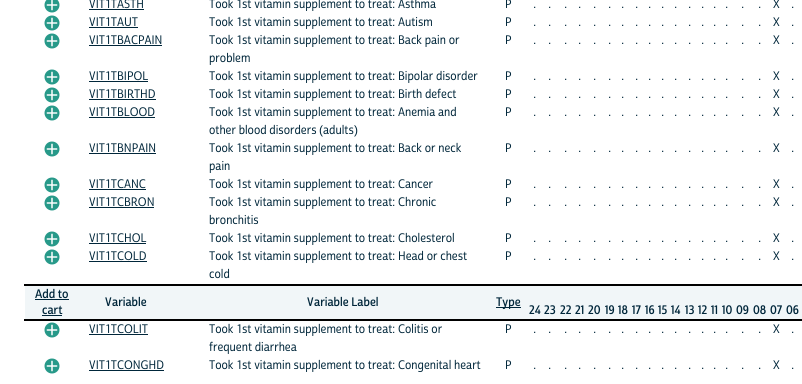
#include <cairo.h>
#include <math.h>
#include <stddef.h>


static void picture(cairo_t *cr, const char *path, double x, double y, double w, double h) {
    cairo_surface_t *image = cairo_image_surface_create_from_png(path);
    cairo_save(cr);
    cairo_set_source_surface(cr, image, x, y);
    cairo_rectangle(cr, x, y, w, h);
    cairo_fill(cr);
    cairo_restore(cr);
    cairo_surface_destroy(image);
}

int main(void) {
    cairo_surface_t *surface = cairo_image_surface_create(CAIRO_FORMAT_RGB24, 802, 384);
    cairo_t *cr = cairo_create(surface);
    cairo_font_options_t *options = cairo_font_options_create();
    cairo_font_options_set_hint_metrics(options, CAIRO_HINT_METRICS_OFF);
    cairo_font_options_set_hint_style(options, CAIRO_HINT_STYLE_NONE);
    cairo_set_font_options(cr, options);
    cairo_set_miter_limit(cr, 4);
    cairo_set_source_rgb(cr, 1, 1, 1);
    cairo_paint(cr);
    picture(cr, "img1.png", 44, 0, 16, 13);
    cairo_select_font_face(cr, "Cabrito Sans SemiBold", CAIRO_FONT_SLANT_NORMAL, CAIRO_FONT_WEIGHT_NORMAL);
    cairo_set_font_size(cr, 12);
    cairo_set_source_rgb(cr, 0, 0.149, 0.227);
    cairo_move_to(cr, 89, 8);
    cairo_show_text(cr, "VIT1TASTH");
    cairo_rectangle(cr, 89, 9, 55, 1);
    cairo_fill(cr);
    cairo_move_to(cr, 209, 8);
    cairo_show_text(cr, "Took 1st vitamin supplement to treat");
    cairo_select_font_face(cr, "Liberation Sans", CAIRO_FONT_SLANT_NORMAL, CAIRO_FONT_WEIGHT_NORMAL);
    cairo_move_to(cr, 392, 8);
    cairo_show_text(cr, ":");
    cairo_select_font_face(cr, "Cabrito Sans SemiBold", CAIRO_FONT_SLANT_NORMAL, CAIRO_FONT_WEIGHT_NORMAL);
    cairo_move_to(cr, 398, 8);
    cairo_show_text(cr, "Asthma");
    cairo_move_to(cr, 505, 8);
    cairo_show_text(cr, "P");
    cairo_select_font_face(cr, "Liberation Sans", CAIRO_FONT_SLANT_NORMAL, CAIRO_FONT_WEIGHT_NORMAL);
    cairo_move_to(cr, 533, 8);
    cairo_show_text(cr, ".");
    cairo_move_to(cr, 548, 8);
    cairo_show_text(cr, ".");
    cairo_move_to(cr, 564, 8);
    cairo_show_text(cr, ".");
    cairo_move_to(cr, 578, 8);
    cairo_show_text(cr, ".");
    cairo_move_to(cr, 593, 8);
    cairo_show_text(cr, ".");
    cairo_move_to(cr, 608, 8);
    cairo_show_text(cr, ".");
    cairo_move_to(cr, 621, 8);
    cairo_show_text(cr, ".");
    cairo_move_to(cr, 635, 8);
    cairo_show_text(cr, ".");
    cairo_move_to(cr, 648, 8);
    cairo_show_text(cr, ".");
    cairo_move_to(cr, 661, 8);
    cairo_show_text(cr, ".");
    cairo_move_to(cr, 674, 8);
    cairo_show_text(cr, ".");
    cairo_move_to(cr, 688, 8);
    cairo_show_text(cr, ".");
    cairo_move_to(cr, 701, 8);
    cairo_show_text(cr, ".");
    cairo_move_to(cr, 713, 8);
    cairo_show_text(cr, ".");
    cairo_move_to(cr, 725, 8);
    cairo_show_text(cr, ".");
    cairo_move_to(cr, 741, 8);
    cairo_show_text(cr, ".");
    cairo_move_to(cr, 758, 8);
    cairo_show_text(cr, ".");
    cairo_select_font_face(cr, "Cabrito Sans SemiBold", CAIRO_FONT_SLANT_NORMAL, CAIRO_FONT_WEIGHT_NORMAL);
    cairo_move_to(cr, 773, 8);
    cairo_show_text(cr, "X");
    cairo_select_font_face(cr, "Liberation Sans", CAIRO_FONT_SLANT_NORMAL, CAIRO_FONT_WEIGHT_NORMAL);
    cairo_move_to(cr, 791, 8);
    cairo_show_text(cr, ".");
    picture(cr, "img2.png", 44, 15, 16, 16);
    cairo_select_font_face(cr, "Cabrito Sans SemiBold", CAIRO_FONT_SLANT_NORMAL, CAIRO_FONT_WEIGHT_NORMAL);
    cairo_move_to(cr, 89, 26);
    cairo_show_text(cr, "VIT1TAUT");
    cairo_rectangle(cr, 89, 27, 49, 1);
    cairo_fill(cr);
    cairo_move_to(cr, 209, 26);
    cairo_show_text(cr, "Took 1st vitamin supplement to treat");
    cairo_select_font_face(cr, "Liberation Sans", CAIRO_FONT_SLANT_NORMAL, CAIRO_FONT_WEIGHT_NORMAL);
    cairo_move_to(cr, 392, 26);
    cairo_show_text(cr, ":");
    cairo_select_font_face(cr, "Cabrito Sans SemiBold", CAIRO_FONT_SLANT_NORMAL, CAIRO_FONT_WEIGHT_NORMAL);
    cairo_move_to(cr, 398, 26);
    cairo_show_text(cr, "Autism");
    cairo_move_to(cr, 505, 26);
    cairo_show_text(cr, "P");
    cairo_select_font_face(cr, "Liberation Sans", CAIRO_FONT_SLANT_NORMAL, CAIRO_FONT_WEIGHT_NORMAL);
    cairo_move_to(cr, 533, 26);
    cairo_show_text(cr, ".");
    cairo_move_to(cr, 548, 26);
    cairo_show_text(cr, ".");
    cairo_move_to(cr, 564, 26);
    cairo_show_text(cr, ".");
    cairo_move_to(cr, 578, 26);
    cairo_show_text(cr, ".");
    cairo_move_to(cr, 593, 26);
    cairo_show_text(cr, ".");
    cairo_move_to(cr, 608, 26);
    cairo_show_text(cr, ".");
    cairo_move_to(cr, 621, 26);
    cairo_show_text(cr, ".");
    cairo_move_to(cr, 635, 26);
    cairo_show_text(cr, ".");
    cairo_move_to(cr, 648, 26);
    cairo_show_text(cr, ".");
    cairo_move_to(cr, 661, 26);
    cairo_show_text(cr, ".");
    cairo_move_to(cr, 674, 26);
    cairo_show_text(cr, ".");
    cairo_move_to(cr, 688, 26);
    cairo_show_text(cr, ".");
    cairo_move_to(cr, 701, 26);
    cairo_show_text(cr, ".");
    cairo_move_to(cr, 713, 26);
    cairo_show_text(cr, ".");
    cairo_move_to(cr, 725, 26);
    cairo_show_text(cr, ".");
    cairo_move_to(cr, 741, 26);
    cairo_show_text(cr, ".");
    cairo_move_to(cr, 758, 26);
    cairo_show_text(cr, ".");
    cairo_select_font_face(cr, "Cabrito Sans SemiBold", CAIRO_FONT_SLANT_NORMAL, CAIRO_FONT_WEIGHT_NORMAL);
    cairo_move_to(cr, 773, 26);
    cairo_show_text(cr, "X");
    cairo_select_font_face(cr, "Liberation Sans", CAIRO_FONT_SLANT_NORMAL, CAIRO_FONT_WEIGHT_NORMAL);
    cairo_move_to(cr, 791, 26);
    cairo_show_text(cr, ".");
    picture(cr, "img2.png", 44, 33, 16, 16);
    cairo_select_font_face(cr, "Cabrito Sans SemiBold", CAIRO_FONT_SLANT_NORMAL, CAIRO_FONT_WEIGHT_NORMAL);
    cairo_move_to(cr, 89, 44);
    cairo_show_text(cr, "VIT1TBACPAIN");
    cairo_rectangle(cr, 89, 45, 73, 1);
    cairo_fill(cr);
    cairo_move_to(cr, 209, 44);
    cairo_show_text(cr, "Took 1st vitamin supplement to treat");
    cairo_select_font_face(cr, "Liberation Sans", CAIRO_FONT_SLANT_NORMAL, CAIRO_FONT_WEIGHT_NORMAL);
    cairo_move_to(cr, 392, 44);
    cairo_show_text(cr, ":");
    cairo_select_font_face(cr, "Cabrito Sans SemiBold", CAIRO_FONT_SLANT_NORMAL, CAIRO_FONT_WEIGHT_NORMAL);
    cairo_move_to(cr, 398, 44);
    cairo_show_text(cr, "Back pain or");
    cairo_move_to(cr, 209, 62);
    cairo_show_text(cr, "problem");
    cairo_move_to(cr, 505, 44);
    cairo_show_text(cr, "P");
    cairo_select_font_face(cr, "Liberation Sans", CAIRO_FONT_SLANT_NORMAL, CAIRO_FONT_WEIGHT_NORMAL);
    cairo_move_to(cr, 533, 44);
    cairo_show_text(cr, ".");
    cairo_move_to(cr, 548, 44);
    cairo_show_text(cr, ".");
    cairo_move_to(cr, 564, 44);
    cairo_show_text(cr, ".");
    cairo_move_to(cr, 578, 44);
    cairo_show_text(cr, ".");
    cairo_move_to(cr, 593, 44);
    cairo_show_text(cr, ".");
    cairo_move_to(cr, 608, 44);
    cairo_show_text(cr, ".");
    cairo_move_to(cr, 621, 44);
    cairo_show_text(cr, ".");
    cairo_move_to(cr, 635, 44);
    cairo_show_text(cr, ".");
    cairo_move_to(cr, 648, 44);
    cairo_show_text(cr, ".");
    cairo_move_to(cr, 661, 44);
    cairo_show_text(cr, ".");
    cairo_move_to(cr, 674, 44);
    cairo_show_text(cr, ".");
    cairo_move_to(cr, 688, 44);
    cairo_show_text(cr, ".");
    cairo_move_to(cr, 701, 44);
    cairo_show_text(cr, ".");
    cairo_move_to(cr, 713, 44);
    cairo_show_text(cr, ".");
    cairo_move_to(cr, 725, 44);
    cairo_show_text(cr, ".");
    cairo_move_to(cr, 741, 44);
    cairo_show_text(cr, ".");
    cairo_move_to(cr, 758, 44);
    cairo_show_text(cr, ".");
    cairo_select_font_face(cr, "Cabrito Sans SemiBold", CAIRO_FONT_SLANT_NORMAL, CAIRO_FONT_WEIGHT_NORMAL);
    cairo_move_to(cr, 773, 44);
    cairo_show_text(cr, "X");
    cairo_select_font_face(cr, "Liberation Sans", CAIRO_FONT_SLANT_NORMAL, CAIRO_FONT_WEIGHT_NORMAL);
    cairo_move_to(cr, 791, 44);
    cairo_show_text(cr, ".");
    picture(cr, "img2.png", 44, 69, 16, 16);
    cairo_select_font_face(cr, "Cabrito Sans SemiBold", CAIRO_FONT_SLANT_NORMAL, CAIRO_FONT_WEIGHT_NORMAL);
    cairo_move_to(cr, 89, 80);
    cairo_show_text(cr, "VIT1TBIPOL");
    cairo_rectangle(cr, 89, 81, 59, 1);
    cairo_fill(cr);
    cairo_move_to(cr, 209, 80);
    cairo_show_text(cr, "Took 1st vitamin supplement to treat");
    cairo_select_font_face(cr, "Liberation Sans", CAIRO_FONT_SLANT_NORMAL, CAIRO_FONT_WEIGHT_NORMAL);
    cairo_move_to(cr, 392, 80);
    cairo_show_text(cr, ":");
    cairo_select_font_face(cr, "Cabrito Sans SemiBold", CAIRO_FONT_SLANT_NORMAL, CAIRO_FONT_WEIGHT_NORMAL);
    cairo_move_to(cr, 398, 80);
    cairo_show_text(cr, "Bipolar disorder");
    cairo_move_to(cr, 505, 80);
    cairo_show_text(cr, "P");
    cairo_select_font_face(cr, "Liberation Sans", CAIRO_FONT_SLANT_NORMAL, CAIRO_FONT_WEIGHT_NORMAL);
    cairo_move_to(cr, 533, 80);
    cairo_show_text(cr, ".");
    cairo_move_to(cr, 548, 80);
    cairo_show_text(cr, ".");
    cairo_move_to(cr, 564, 80);
    cairo_show_text(cr, ".");
    cairo_move_to(cr, 578, 80);
    cairo_show_text(cr, ".");
    cairo_move_to(cr, 593, 80);
    cairo_show_text(cr, ".");
    cairo_move_to(cr, 608, 80);
    cairo_show_text(cr, ".");
    cairo_move_to(cr, 621, 80);
    cairo_show_text(cr, ".");
    cairo_move_to(cr, 635, 80);
    cairo_show_text(cr, ".");
    cairo_move_to(cr, 648, 80);
    cairo_show_text(cr, ".");
    cairo_move_to(cr, 661, 80);
    cairo_show_text(cr, ".");
    cairo_move_to(cr, 674, 80);
    cairo_show_text(cr, ".");
    cairo_move_to(cr, 688, 80);
    cairo_show_text(cr, ".");
    cairo_move_to(cr, 701, 80);
    cairo_show_text(cr, ".");
    cairo_move_to(cr, 713, 80);
    cairo_show_text(cr, ".");
    cairo_move_to(cr, 725, 80);
    cairo_show_text(cr, ".");
    cairo_move_to(cr, 741, 80);
    cairo_show_text(cr, ".");
    cairo_move_to(cr, 758, 80);
    cairo_show_text(cr, ".");
    cairo_select_font_face(cr, "Cabrito Sans SemiBold", CAIRO_FONT_SLANT_NORMAL, CAIRO_FONT_WEIGHT_NORMAL);
    cairo_move_to(cr, 773, 80);
    cairo_show_text(cr, "X");
    cairo_select_font_face(cr, "Liberation Sans", CAIRO_FONT_SLANT_NORMAL, CAIRO_FONT_WEIGHT_NORMAL);
    cairo_move_to(cr, 791, 80);
    cairo_show_text(cr, ".");
    picture(cr, "img2.png", 44, 87, 16, 16);
    cairo_select_font_face(cr, "Cabrito Sans SemiBold", CAIRO_FONT_SLANT_NORMAL, CAIRO_FONT_WEIGHT_NORMAL);
    cairo_move_to(cr, 89, 98);
    cairo_show_text(cr, "VIT1TBIRTHD");
    cairo_rectangle(cr, 89, 99, 67, 1);
    cairo_fill(cr);
    cairo_move_to(cr, 209, 98);
    cairo_show_text(cr, "Took 1st vitamin supplement to treat");
    cairo_select_font_face(cr, "Liberation Sans", CAIRO_FONT_SLANT_NORMAL, CAIRO_FONT_WEIGHT_NORMAL);
    cairo_move_to(cr, 392, 98);
    cairo_show_text(cr, ":");
    cairo_select_font_face(cr, "Cabrito Sans SemiBold", CAIRO_FONT_SLANT_NORMAL, CAIRO_FONT_WEIGHT_NORMAL);
    cairo_move_to(cr, 398, 98);
    cairo_show_text(cr, "Birth defect");
    cairo_move_to(cr, 505, 98);
    cairo_show_text(cr, "P");
    cairo_select_font_face(cr, "Liberation Sans", CAIRO_FONT_SLANT_NORMAL, CAIRO_FONT_WEIGHT_NORMAL);
    cairo_move_to(cr, 533, 98);
    cairo_show_text(cr, ".");
    cairo_move_to(cr, 548, 98);
    cairo_show_text(cr, ".");
    cairo_move_to(cr, 564, 98);
    cairo_show_text(cr, ".");
    cairo_move_to(cr, 578, 98);
    cairo_show_text(cr, ".");
    cairo_move_to(cr, 593, 98);
    cairo_show_text(cr, ".");
    cairo_move_to(cr, 608, 98);
    cairo_show_text(cr, ".");
    cairo_move_to(cr, 621, 98);
    cairo_show_text(cr, ".");
    cairo_move_to(cr, 635, 98);
    cairo_show_text(cr, ".");
    cairo_move_to(cr, 648, 98);
    cairo_show_text(cr, ".");
    cairo_move_to(cr, 661, 98);
    cairo_show_text(cr, ".");
    cairo_move_to(cr, 674, 98);
    cairo_show_text(cr, ".");
    cairo_move_to(cr, 688, 98);
    cairo_show_text(cr, ".");
    cairo_move_to(cr, 701, 98);
    cairo_show_text(cr, ".");
    cairo_move_to(cr, 713, 98);
    cairo_show_text(cr, ".");
    cairo_move_to(cr, 725, 98);
    cairo_show_text(cr, ".");
    cairo_move_to(cr, 741, 98);
    cairo_show_text(cr, ".");
    cairo_move_to(cr, 758, 98);
    cairo_show_text(cr, ".");
    cairo_select_font_face(cr, "Cabrito Sans SemiBold", CAIRO_FONT_SLANT_NORMAL, CAIRO_FONT_WEIGHT_NORMAL);
    cairo_move_to(cr, 773, 98);
    cairo_show_text(cr, "X");
    cairo_select_font_face(cr, "Liberation Sans", CAIRO_FONT_SLANT_NORMAL, CAIRO_FONT_WEIGHT_NORMAL);
    cairo_move_to(cr, 791, 98);
    cairo_show_text(cr, ".");
    picture(cr, "img2.png", 44, 105, 16, 16);
    cairo_select_font_face(cr, "Cabrito Sans SemiBold", CAIRO_FONT_SLANT_NORMAL, CAIRO_FONT_WEIGHT_NORMAL);
    cairo_move_to(cr, 89, 116);
    cairo_show_text(cr, "VIT1TBLOOD");
    cairo_rectangle(cr, 89, 117, 66, 1);
    cairo_fill(cr);
    cairo_move_to(cr, 209, 116);
    cairo_show_text(cr, "Took 1st vitamin supplement to treat");
    cairo_select_font_face(cr, "Liberation Sans", CAIRO_FONT_SLANT_NORMAL, CAIRO_FONT_WEIGHT_NORMAL);
    cairo_move_to(cr, 392, 116);
    cairo_show_text(cr, ":");
    cairo_select_font_face(cr, "Cabrito Sans SemiBold", CAIRO_FONT_SLANT_NORMAL, CAIRO_FONT_WEIGHT_NORMAL);
    cairo_move_to(cr, 398, 116);
    cairo_show_text(cr, "Anemia and");
    cairo_move_to(cr, 209, 134);
    cairo_show_text(cr, "other blood disorders");
    cairo_select_font_face(cr, "Liberation Sans", CAIRO_FONT_SLANT_NORMAL, CAIRO_FONT_WEIGHT_NORMAL);
    cairo_move_to(cr, 319, 134);
    cairo_show_text(cr, "(");
    cairo_select_font_face(cr, "Cabrito Sans SemiBold", CAIRO_FONT_SLANT_NORMAL, CAIRO_FONT_WEIGHT_NORMAL);
    cairo_move_to(cr, 323, 134);
    cairo_show_text(cr, "adults");
    cairo_select_font_face(cr, "Liberation Sans", CAIRO_FONT_SLANT_NORMAL, CAIRO_FONT_WEIGHT_NORMAL);
    cairo_move_to(cr, 354, 134);
    cairo_show_text(cr, ")");
    cairo_select_font_face(cr, "Cabrito Sans SemiBold", CAIRO_FONT_SLANT_NORMAL, CAIRO_FONT_WEIGHT_NORMAL);
    cairo_move_to(cr, 505, 116);
    cairo_show_text(cr, "P");
    cairo_select_font_face(cr, "Liberation Sans", CAIRO_FONT_SLANT_NORMAL, CAIRO_FONT_WEIGHT_NORMAL);
    cairo_move_to(cr, 533, 116);
    cairo_show_text(cr, ".");
    cairo_move_to(cr, 548, 116);
    cairo_show_text(cr, ".");
    cairo_move_to(cr, 564, 116);
    cairo_show_text(cr, ".");
    cairo_move_to(cr, 578, 116);
    cairo_show_text(cr, ".");
    cairo_move_to(cr, 593, 116);
    cairo_show_text(cr, ".");
    cairo_move_to(cr, 608, 116);
    cairo_show_text(cr, ".");
    cairo_move_to(cr, 621, 116);
    cairo_show_text(cr, ".");
    cairo_move_to(cr, 635, 116);
    cairo_show_text(cr, ".");
    cairo_move_to(cr, 648, 116);
    cairo_show_text(cr, ".");
    cairo_move_to(cr, 661, 116);
    cairo_show_text(cr, ".");
    cairo_move_to(cr, 674, 116);
    cairo_show_text(cr, ".");
    cairo_move_to(cr, 688, 116);
    cairo_show_text(cr, ".");
    cairo_move_to(cr, 701, 116);
    cairo_show_text(cr, ".");
    cairo_move_to(cr, 713, 116);
    cairo_show_text(cr, ".");
    cairo_move_to(cr, 725, 116);
    cairo_show_text(cr, ".");
    cairo_move_to(cr, 741, 116);
    cairo_show_text(cr, ".");
    cairo_move_to(cr, 758, 116);
    cairo_show_text(cr, ".");
    cairo_select_font_face(cr, "Cabrito Sans SemiBold", CAIRO_FONT_SLANT_NORMAL, CAIRO_FONT_WEIGHT_NORMAL);
    cairo_move_to(cr, 773, 116);
    cairo_show_text(cr, "X");
    cairo_select_font_face(cr, "Liberation Sans", CAIRO_FONT_SLANT_NORMAL, CAIRO_FONT_WEIGHT_NORMAL);
    cairo_move_to(cr, 791, 116);
    cairo_show_text(cr, ".");
    picture(cr, "img2.png", 44, 141, 16, 16);
    cairo_select_font_face(cr, "Cabrito Sans SemiBold", CAIRO_FONT_SLANT_NORMAL, CAIRO_FONT_WEIGHT_NORMAL);
    cairo_move_to(cr, 89, 152);
    cairo_show_text(cr, "VIT1TBNPAIN");
    cairo_rectangle(cr, 89, 153, 67, 1);
    cairo_fill(cr);
    cairo_move_to(cr, 209, 152);
    cairo_show_text(cr, "Took 1st vitamin supplement to treat");
    cairo_select_font_face(cr, "Liberation Sans", CAIRO_FONT_SLANT_NORMAL, CAIRO_FONT_WEIGHT_NORMAL);
    cairo_move_to(cr, 392, 152);
    cairo_show_text(cr, ":");
    cairo_select_font_face(cr, "Cabrito Sans SemiBold", CAIRO_FONT_SLANT_NORMAL, CAIRO_FONT_WEIGHT_NORMAL);
    cairo_move_to(cr, 398, 152);
    cairo_show_text(cr, "Back or neck");
    cairo_move_to(cr, 209, 170);
    cairo_show_text(cr, "pain");
    cairo_move_to(cr, 505, 152);
    cairo_show_text(cr, "P");
    cairo_select_font_face(cr, "Liberation Sans", CAIRO_FONT_SLANT_NORMAL, CAIRO_FONT_WEIGHT_NORMAL);
    cairo_move_to(cr, 533, 152);
    cairo_show_text(cr, ".");
    cairo_move_to(cr, 548, 152);
    cairo_show_text(cr, ".");
    cairo_move_to(cr, 564, 152);
    cairo_show_text(cr, ".");
    cairo_move_to(cr, 578, 152);
    cairo_show_text(cr, ".");
    cairo_move_to(cr, 593, 152);
    cairo_show_text(cr, ".");
    cairo_move_to(cr, 608, 152);
    cairo_show_text(cr, ".");
    cairo_move_to(cr, 621, 152);
    cairo_show_text(cr, ".");
    cairo_move_to(cr, 635, 152);
    cairo_show_text(cr, ".");
    cairo_move_to(cr, 648, 152);
    cairo_show_text(cr, ".");
    cairo_move_to(cr, 661, 152);
    cairo_show_text(cr, ".");
    cairo_move_to(cr, 674, 152);
    cairo_show_text(cr, ".");
    cairo_move_to(cr, 688, 152);
    cairo_show_text(cr, ".");
    cairo_move_to(cr, 701, 152);
    cairo_show_text(cr, ".");
    cairo_move_to(cr, 713, 152);
    cairo_show_text(cr, ".");
    cairo_move_to(cr, 725, 152);
    cairo_show_text(cr, ".");
    cairo_move_to(cr, 741, 152);
    cairo_show_text(cr, ".");
    cairo_move_to(cr, 758, 152);
    cairo_show_text(cr, ".");
    cairo_select_font_face(cr, "Cabrito Sans SemiBold", CAIRO_FONT_SLANT_NORMAL, CAIRO_FONT_WEIGHT_NORMAL);
    cairo_move_to(cr, 773, 152);
    cairo_show_text(cr, "X");
    cairo_select_font_face(cr, "Liberation Sans", CAIRO_FONT_SLANT_NORMAL, CAIRO_FONT_WEIGHT_NORMAL);
    cairo_move_to(cr, 791, 152);
    cairo_show_text(cr, ".");
    picture(cr, "img2.png", 44, 177, 16, 16);
    cairo_select_font_face(cr, "Cabrito Sans SemiBold", CAIRO_FONT_SLANT_NORMAL, CAIRO_FONT_WEIGHT_NORMAL);
    cairo_move_to(cr, 89, 188);
    cairo_show_text(cr, "VIT1TCANC");
    cairo_rectangle(cr, 89, 189, 57, 1);
    cairo_fill(cr);
    cairo_move_to(cr, 209, 188);
    cairo_show_text(cr, "Took 1st vitamin supplement to treat");
    cairo_select_font_face(cr, "Liberation Sans", CAIRO_FONT_SLANT_NORMAL, CAIRO_FONT_WEIGHT_NORMAL);
    cairo_move_to(cr, 392, 188);
    cairo_show_text(cr, ":");
    cairo_select_font_face(cr, "Cabrito Sans SemiBold", CAIRO_FONT_SLANT_NORMAL, CAIRO_FONT_WEIGHT_NORMAL);
    cairo_move_to(cr, 398, 188);
    cairo_show_text(cr, "Cancer");
    cairo_move_to(cr, 505, 188);
    cairo_show_text(cr, "P");
    cairo_select_font_face(cr, "Liberation Sans", CAIRO_FONT_SLANT_NORMAL, CAIRO_FONT_WEIGHT_NORMAL);
    cairo_move_to(cr, 533, 188);
    cairo_show_text(cr, ".");
    cairo_move_to(cr, 548, 188);
    cairo_show_text(cr, ".");
    cairo_move_to(cr, 564, 188);
    cairo_show_text(cr, ".");
    cairo_move_to(cr, 578, 188);
    cairo_show_text(cr, ".");
    cairo_move_to(cr, 593, 188);
    cairo_show_text(cr, ".");
    cairo_move_to(cr, 608, 188);
    cairo_show_text(cr, ".");
    cairo_move_to(cr, 621, 188);
    cairo_show_text(cr, ".");
    cairo_move_to(cr, 635, 188);
    cairo_show_text(cr, ".");
    cairo_move_to(cr, 648, 188);
    cairo_show_text(cr, ".");
    cairo_move_to(cr, 661, 188);
    cairo_show_text(cr, ".");
    cairo_move_to(cr, 674, 188);
    cairo_show_text(cr, ".");
    cairo_move_to(cr, 688, 188);
    cairo_show_text(cr, ".");
    cairo_move_to(cr, 701, 188);
    cairo_show_text(cr, ".");
    cairo_move_to(cr, 713, 188);
    cairo_show_text(cr, ".");
    cairo_move_to(cr, 725, 188);
    cairo_show_text(cr, ".");
    cairo_move_to(cr, 741, 188);
    cairo_show_text(cr, ".");
    cairo_move_to(cr, 758, 188);
    cairo_show_text(cr, ".");
    cairo_select_font_face(cr, "Cabrito Sans SemiBold", CAIRO_FONT_SLANT_NORMAL, CAIRO_FONT_WEIGHT_NORMAL);
    cairo_move_to(cr, 773, 188);
    cairo_show_text(cr, "X");
    cairo_select_font_face(cr, "Liberation Sans", CAIRO_FONT_SLANT_NORMAL, CAIRO_FONT_WEIGHT_NORMAL);
    cairo_move_to(cr, 791, 188);
    cairo_show_text(cr, ".");
    picture(cr, "img2.png", 44, 195, 16, 16);
    cairo_select_font_face(cr, "Cabrito Sans SemiBold", CAIRO_FONT_SLANT_NORMAL, CAIRO_FONT_WEIGHT_NORMAL);
    cairo_move_to(cr, 89, 206);
    cairo_show_text(cr, "VIT1TCBRON");
    cairo_rectangle(cr, 89, 207, 65, 1);
    cairo_fill(cr);
    cairo_move_to(cr, 209, 206);
    cairo_show_text(cr, "Took 1st vitamin supplement to treat");
    cairo_select_font_face(cr, "Liberation Sans", CAIRO_FONT_SLANT_NORMAL, CAIRO_FONT_WEIGHT_NORMAL);
    cairo_move_to(cr, 392, 206);
    cairo_show_text(cr, ":");
    cairo_select_font_face(cr, "Cabrito Sans SemiBold", CAIRO_FONT_SLANT_NORMAL, CAIRO_FONT_WEIGHT_NORMAL);
    cairo_move_to(cr, 398, 206);
    cairo_show_text(cr, "Chronic");
    cairo_move_to(cr, 209, 224);
    cairo_show_text(cr, "bronchitis");
    cairo_move_to(cr, 505, 206);
    cairo_show_text(cr, "P");
    cairo_select_font_face(cr, "Liberation Sans", CAIRO_FONT_SLANT_NORMAL, CAIRO_FONT_WEIGHT_NORMAL);
    cairo_move_to(cr, 533, 206);
    cairo_show_text(cr, ".");
    cairo_move_to(cr, 548, 206);
    cairo_show_text(cr, ".");
    cairo_move_to(cr, 564, 206);
    cairo_show_text(cr, ".");
    cairo_move_to(cr, 578, 206);
    cairo_show_text(cr, ".");
    cairo_move_to(cr, 593, 206);
    cairo_show_text(cr, ".");
    cairo_move_to(cr, 608, 206);
    cairo_show_text(cr, ".");
    cairo_move_to(cr, 621, 206);
    cairo_show_text(cr, ".");
    cairo_move_to(cr, 635, 206);
    cairo_show_text(cr, ".");
    cairo_move_to(cr, 648, 206);
    cairo_show_text(cr, ".");
    cairo_move_to(cr, 661, 206);
    cairo_show_text(cr, ".");
    cairo_move_to(cr, 674, 206);
    cairo_show_text(cr, ".");
    cairo_move_to(cr, 688, 206);
    cairo_show_text(cr, ".");
    cairo_move_to(cr, 701, 206);
    cairo_show_text(cr, ".");
    cairo_move_to(cr, 713, 206);
    cairo_show_text(cr, ".");
    cairo_move_to(cr, 725, 206);
    cairo_show_text(cr, ".");
    cairo_move_to(cr, 741, 206);
    cairo_show_text(cr, ".");
    cairo_move_to(cr, 758, 206);
    cairo_show_text(cr, ".");
    cairo_select_font_face(cr, "Cabrito Sans SemiBold", CAIRO_FONT_SLANT_NORMAL, CAIRO_FONT_WEIGHT_NORMAL);
    cairo_move_to(cr, 773, 206);
    cairo_show_text(cr, "X");
    cairo_select_font_face(cr, "Liberation Sans", CAIRO_FONT_SLANT_NORMAL, CAIRO_FONT_WEIGHT_NORMAL);
    cairo_move_to(cr, 791, 206);
    cairo_show_text(cr, ".");
    picture(cr, "img2.png", 44, 231, 16, 16);
    cairo_select_font_face(cr, "Cabrito Sans SemiBold", CAIRO_FONT_SLANT_NORMAL, CAIRO_FONT_WEIGHT_NORMAL);
    cairo_move_to(cr, 89, 242);
    cairo_show_text(cr, "VIT1TCHOL");
    cairo_rectangle(cr, 89, 243, 57, 1);
    cairo_fill(cr);
    cairo_move_to(cr, 209, 242);
    cairo_show_text(cr, "Took 1st vitamin supplement to treat");
    cairo_select_font_face(cr, "Liberation Sans", CAIRO_FONT_SLANT_NORMAL, CAIRO_FONT_WEIGHT_NORMAL);
    cairo_move_to(cr, 392, 242);
    cairo_show_text(cr, ":");
    cairo_select_font_face(cr, "Cabrito Sans SemiBold", CAIRO_FONT_SLANT_NORMAL, CAIRO_FONT_WEIGHT_NORMAL);
    cairo_move_to(cr, 398, 242);
    cairo_show_text(cr, "Cholesterol");
    cairo_move_to(cr, 505, 242);
    cairo_show_text(cr, "P");
    cairo_select_font_face(cr, "Liberation Sans", CAIRO_FONT_SLANT_NORMAL, CAIRO_FONT_WEIGHT_NORMAL);
    cairo_move_to(cr, 533, 242);
    cairo_show_text(cr, ".");
    cairo_move_to(cr, 548, 242);
    cairo_show_text(cr, ".");
    cairo_move_to(cr, 564, 242);
    cairo_show_text(cr, ".");
    cairo_move_to(cr, 578, 242);
    cairo_show_text(cr, ".");
    cairo_move_to(cr, 593, 242);
    cairo_show_text(cr, ".");
    cairo_move_to(cr, 608, 242);
    cairo_show_text(cr, ".");
    cairo_move_to(cr, 621, 242);
    cairo_show_text(cr, ".");
    cairo_move_to(cr, 635, 242);
    cairo_show_text(cr, ".");
    cairo_move_to(cr, 648, 242);
    cairo_show_text(cr, ".");
    cairo_move_to(cr, 661, 242);
    cairo_show_text(cr, ".");
    cairo_move_to(cr, 674, 242);
    cairo_show_text(cr, ".");
    cairo_move_to(cr, 688, 242);
    cairo_show_text(cr, ".");
    cairo_move_to(cr, 701, 242);
    cairo_show_text(cr, ".");
    cairo_move_to(cr, 713, 242);
    cairo_show_text(cr, ".");
    cairo_move_to(cr, 725, 242);
    cairo_show_text(cr, ".");
    cairo_move_to(cr, 741, 242);
    cairo_show_text(cr, ".");
    cairo_move_to(cr, 758, 242);
    cairo_show_text(cr, ".");
    cairo_select_font_face(cr, "Cabrito Sans SemiBold", CAIRO_FONT_SLANT_NORMAL, CAIRO_FONT_WEIGHT_NORMAL);
    cairo_move_to(cr, 773, 242);
    cairo_show_text(cr, "X");
    cairo_select_font_face(cr, "Liberation Sans", CAIRO_FONT_SLANT_NORMAL, CAIRO_FONT_WEIGHT_NORMAL);
    cairo_move_to(cr, 791, 242);
    cairo_show_text(cr, ".");
    picture(cr, "img2.png", 44, 249, 16, 16);
    cairo_select_font_face(cr, "Cabrito Sans SemiBold", CAIRO_FONT_SLANT_NORMAL, CAIRO_FONT_WEIGHT_NORMAL);
    cairo_move_to(cr, 89, 260);
    cairo_show_text(cr, "VIT1TCOLD");
    cairo_rectangle(cr, 89, 261, 58, 1);
    cairo_fill(cr);
    cairo_move_to(cr, 209, 260);
    cairo_show_text(cr, "Took 1st vitamin supplement to treat");
    cairo_select_font_face(cr, "Liberation Sans", CAIRO_FONT_SLANT_NORMAL, CAIRO_FONT_WEIGHT_NORMAL);
    cairo_move_to(cr, 392, 260);
    cairo_show_text(cr, ":");
    cairo_select_font_face(cr, "Cabrito Sans SemiBold", CAIRO_FONT_SLANT_NORMAL, CAIRO_FONT_WEIGHT_NORMAL);
    cairo_move_to(cr, 398, 260);
    cairo_show_text(cr, "Head or chest");
    cairo_move_to(cr, 209, 278);
    cairo_show_text(cr, "cold");
    cairo_move_to(cr, 505, 260);
    cairo_show_text(cr, "P");
    cairo_select_font_face(cr, "Liberation Sans", CAIRO_FONT_SLANT_NORMAL, CAIRO_FONT_WEIGHT_NORMAL);
    cairo_move_to(cr, 533, 260);
    cairo_show_text(cr, ".");
    cairo_move_to(cr, 548, 260);
    cairo_show_text(cr, ".");
    cairo_move_to(cr, 564, 260);
    cairo_show_text(cr, ".");
    cairo_move_to(cr, 578, 260);
    cairo_show_text(cr, ".");
    cairo_move_to(cr, 593, 260);
    cairo_show_text(cr, ".");
    cairo_move_to(cr, 608, 260);
    cairo_show_text(cr, ".");
    cairo_move_to(cr, 621, 260);
    cairo_show_text(cr, ".");
    cairo_move_to(cr, 635, 260);
    cairo_show_text(cr, ".");
    cairo_move_to(cr, 648, 260);
    cairo_show_text(cr, ".");
    cairo_move_to(cr, 661, 260);
    cairo_show_text(cr, ".");
    cairo_move_to(cr, 674, 260);
    cairo_show_text(cr, ".");
    cairo_move_to(cr, 688, 260);
    cairo_show_text(cr, ".");
    cairo_move_to(cr, 701, 260);
    cairo_show_text(cr, ".");
    cairo_move_to(cr, 713, 260);
    cairo_show_text(cr, ".");
    cairo_move_to(cr, 725, 260);
    cairo_show_text(cr, ".");
    cairo_move_to(cr, 741, 260);
    cairo_show_text(cr, ".");
    cairo_move_to(cr, 758, 260);
    cairo_show_text(cr, ".");
    cairo_select_font_face(cr, "Cabrito Sans SemiBold", CAIRO_FONT_SLANT_NORMAL, CAIRO_FONT_WEIGHT_NORMAL);
    cairo_move_to(cr, 773, 260);
    cairo_show_text(cr, "X");
    cairo_select_font_face(cr, "Liberation Sans", CAIRO_FONT_SLANT_NORMAL, CAIRO_FONT_WEIGHT_NORMAL);
    cairo_move_to(cr, 791, 260);
    cairo_show_text(cr, ".");
    cairo_set_source_rgb(cr, 0.945, 0.961, 0.969);
    cairo_rectangle(cr, 25, 286, 776, 33);
    cairo_fill(cr);
    cairo_select_font_face(cr, "Cabrito Sans", CAIRO_FONT_SLANT_NORMAL, CAIRO_FONT_WEIGHT_BOLD);
    cairo_set_source_rgb(cr, 0, 0.149, 0.227);
    cairo_move_to(cr, 35, 298);
    cairo_show_text(cr, "Add to");
    cairo_rectangle(cr, 35, 299, 34, 1);
    cairo_fill(cr);
    cairo_move_to(cr, 42, 314);
    cairo_show_text(cr, "cart");
    cairo_rectangle(cr, 42, 315, 20, 1);
    cairo_fill(cr);
    cairo_move_to(cr, 105, 306);
    cairo_show_text(cr, "Variable");
    cairo_move_to(cr, 307, 306);
    cairo_show_text(cr, "Variable Label");
    cairo_rectangle(cr, 496, 307, 25, 1);
    cairo_fill(cr);
    cairo_move_to(cr, 496, 306);
    cairo_show_text(cr, "Type");
    cairo_move_to(cr, 529, 314);
    cairo_show_text(cr, "24");
    cairo_move_to(cr, 544, 314);
    cairo_show_text(cr, "23");
    cairo_move_to(cr, 560, 314);
    cairo_show_text(cr, "22");
    cairo_move_to(cr, 575, 314);
    cairo_show_text(cr, "21");
    cairo_move_to(cr, 588, 314);
    cairo_show_text(cr, "20");
    cairo_move_to(cr, 605, 314);
    cairo_show_text(cr, "19");
    cairo_move_to(cr, 618, 314);
    cairo_show_text(cr, "18");
    cairo_move_to(cr, 632, 314);
    cairo_show_text(cr, "17");
    cairo_move_to(cr, 645, 314);
    cairo_show_text(cr, "16");
    cairo_move_to(cr, 658, 314);
    cairo_show_text(cr, "15");
    cairo_move_to(cr, 671, 314);
    cairo_show_text(cr, "14");
    cairo_move_to(cr, 685, 314);
    cairo_show_text(cr, "13");
    cairo_move_to(cr, 698, 314);
    cairo_show_text(cr, "12");
    cairo_move_to(cr, 711, 314);
    cairo_show_text(cr, "11");
    cairo_move_to(cr, 722, 314);
    cairo_show_text(cr, "10");
    cairo_move_to(cr, 736, 314);
    cairo_show_text(cr, "09");
    cairo_move_to(cr, 753, 314);
    cairo_show_text(cr, "08");
    cairo_move_to(cr, 770, 314);
    cairo_show_text(cr, "07");
    cairo_set_source_rgb(cr, 0.945, 0.961, 0.969);
    cairo_rectangle(cr, 801, 285, 1, 35);
    cairo_fill(cr);
    cairo_set_source_rgb(cr, 0, 0, 0);
    cairo_rectangle(cr, 24, 284, 778, 2);
    cairo_fill(cr);
    cairo_rectangle(cr, 24, 319, 778, 2);
    cairo_fill(cr);
    cairo_set_source_rgb(cr, 0, 0.149, 0.227);
    cairo_move_to(cr, 786, 314);
    cairo_show_text(cr, "06");
    picture(cr, "img2.png", 44, 322, 16, 16);
    cairo_select_font_face(cr, "Cabrito Sans SemiBold", CAIRO_FONT_SLANT_NORMAL, CAIRO_FONT_WEIGHT_NORMAL);
    cairo_move_to(cr, 89, 333);
    cairo_show_text(cr, "VIT1TCOLIT");
    cairo_rectangle(cr, 89, 334, 59, 1);
    cairo_fill(cr);
    cairo_move_to(cr, 209, 333);
    cairo_show_text(cr, "Took 1st vitamin supplement to treat");
    cairo_select_font_face(cr, "Liberation Sans", CAIRO_FONT_SLANT_NORMAL, CAIRO_FONT_WEIGHT_NORMAL);
    cairo_move_to(cr, 392, 333);
    cairo_show_text(cr, ":");
    cairo_select_font_face(cr, "Cabrito Sans SemiBold", CAIRO_FONT_SLANT_NORMAL, CAIRO_FONT_WEIGHT_NORMAL);
    cairo_move_to(cr, 398, 333);
    cairo_show_text(cr, "Colitis or");
    cairo_move_to(cr, 209, 351);
    cairo_show_text(cr, "frequent diarrhea");
    cairo_move_to(cr, 505, 333);
    cairo_show_text(cr, "P");
    cairo_select_font_face(cr, "Liberation Sans", CAIRO_FONT_SLANT_NORMAL, CAIRO_FONT_WEIGHT_NORMAL);
    cairo_move_to(cr, 533, 333);
    cairo_show_text(cr, ".");
    cairo_move_to(cr, 548, 333);
    cairo_show_text(cr, ".");
    cairo_move_to(cr, 564, 333);
    cairo_show_text(cr, ".");
    cairo_move_to(cr, 578, 333);
    cairo_show_text(cr, ".");
    cairo_move_to(cr, 593, 333);
    cairo_show_text(cr, ".");
    cairo_move_to(cr, 608, 333);
    cairo_show_text(cr, ".");
    cairo_move_to(cr, 621, 333);
    cairo_show_text(cr, ".");
    cairo_move_to(cr, 635, 333);
    cairo_show_text(cr, ".");
    cairo_move_to(cr, 648, 333);
    cairo_show_text(cr, ".");
    cairo_move_to(cr, 661, 333);
    cairo_show_text(cr, ".");
    cairo_move_to(cr, 674, 333);
    cairo_show_text(cr, ".");
    cairo_move_to(cr, 688, 333);
    cairo_show_text(cr, ".");
    cairo_move_to(cr, 701, 333);
    cairo_show_text(cr, ".");
    cairo_move_to(cr, 713, 333);
    cairo_show_text(cr, ".");
    cairo_move_to(cr, 725, 333);
    cairo_show_text(cr, ".");
    cairo_move_to(cr, 741, 333);
    cairo_show_text(cr, ".");
    cairo_move_to(cr, 758, 333);
    cairo_show_text(cr, ".");
    cairo_select_font_face(cr, "Cabrito Sans SemiBold", CAIRO_FONT_SLANT_NORMAL, CAIRO_FONT_WEIGHT_NORMAL);
    cairo_move_to(cr, 773, 333);
    cairo_show_text(cr, "X");
    cairo_select_font_face(cr, "Liberation Sans", CAIRO_FONT_SLANT_NORMAL, CAIRO_FONT_WEIGHT_NORMAL);
    cairo_move_to(cr, 791, 333);
    cairo_show_text(cr, ".");
    picture(cr, "img2.png", 44, 358, 16, 16);
    cairo_select_font_face(cr, "Cabrito Sans SemiBold", CAIRO_FONT_SLANT_NORMAL, CAIRO_FONT_WEIGHT_NORMAL);
    cairo_move_to(cr, 89, 369);
    cairo_show_text(cr, "VIT1TCONGHD");
    cairo_rectangle(cr, 89, 370, 75, 1);
    cairo_fill(cr);
    cairo_move_to(cr, 209, 369);
    cairo_show_text(cr, "Took 1st vitamin supplement to treat");
    cairo_select_font_face(cr, "Liberation Sans", CAIRO_FONT_SLANT_NORMAL, CAIRO_FONT_WEIGHT_NORMAL);
    cairo_move_to(cr, 392, 369);
    cairo_show_text(cr, ":");
    cairo_select_font_face(cr, "Cabrito Sans SemiBold", CAIRO_FONT_SLANT_NORMAL, CAIRO_FONT_WEIGHT_NORMAL);
    cairo_move_to(cr, 398, 369);
    cairo_show_text(cr, "Congenital heart");
    cairo_move_to(cr, 505, 369);
    cairo_show_text(cr, "P");
    cairo_select_font_face(cr, "Liberation Sans", CAIRO_FONT_SLANT_NORMAL, CAIRO_FONT_WEIGHT_NORMAL);
    cairo_move_to(cr, 533, 369);
    cairo_show_text(cr, ".");
    cairo_move_to(cr, 548, 369);
    cairo_show_text(cr, ".");
    cairo_move_to(cr, 564, 369);
    cairo_show_text(cr, ".");
    cairo_move_to(cr, 578, 369);
    cairo_show_text(cr, ".");
    cairo_move_to(cr, 593, 369);
    cairo_show_text(cr, ".");
    cairo_move_to(cr, 608, 369);
    cairo_show_text(cr, ".");
    cairo_move_to(cr, 621, 369);
    cairo_show_text(cr, ".");
    cairo_move_to(cr, 635, 369);
    cairo_show_text(cr, ".");
    cairo_move_to(cr, 648, 369);
    cairo_show_text(cr, ".");
    cairo_move_to(cr, 661, 369);
    cairo_show_text(cr, ".");
    cairo_move_to(cr, 674, 369);
    cairo_show_text(cr, ".");
    cairo_move_to(cr, 688, 369);
    cairo_show_text(cr, ".");
    cairo_move_to(cr, 701, 369);
    cairo_show_text(cr, ".");
    cairo_move_to(cr, 713, 369);
    cairo_show_text(cr, ".");
    cairo_move_to(cr, 725, 369);
    cairo_show_text(cr, ".");
    cairo_move_to(cr, 741, 369);
    cairo_show_text(cr, ".");
    cairo_move_to(cr, 758, 369);
    cairo_show_text(cr, ".");
    cairo_select_font_face(cr, "Cabrito Sans SemiBold", CAIRO_FONT_SLANT_NORMAL, CAIRO_FONT_WEIGHT_NORMAL);
    cairo_move_to(cr, 773, 369);
    cairo_show_text(cr, "X");
    cairo_select_font_face(cr, "Liberation Sans", CAIRO_FONT_SLANT_NORMAL, CAIRO_FONT_WEIGHT_NORMAL);
    cairo_move_to(cr, 791, 369);
    cairo_show_text(cr, ".");
    cairo_surface_write_to_png(surface, "page.png");
    cairo_font_options_destroy(options);
    cairo_destroy(cr);
    cairo_surface_destroy(surface);
    return 0;
}
